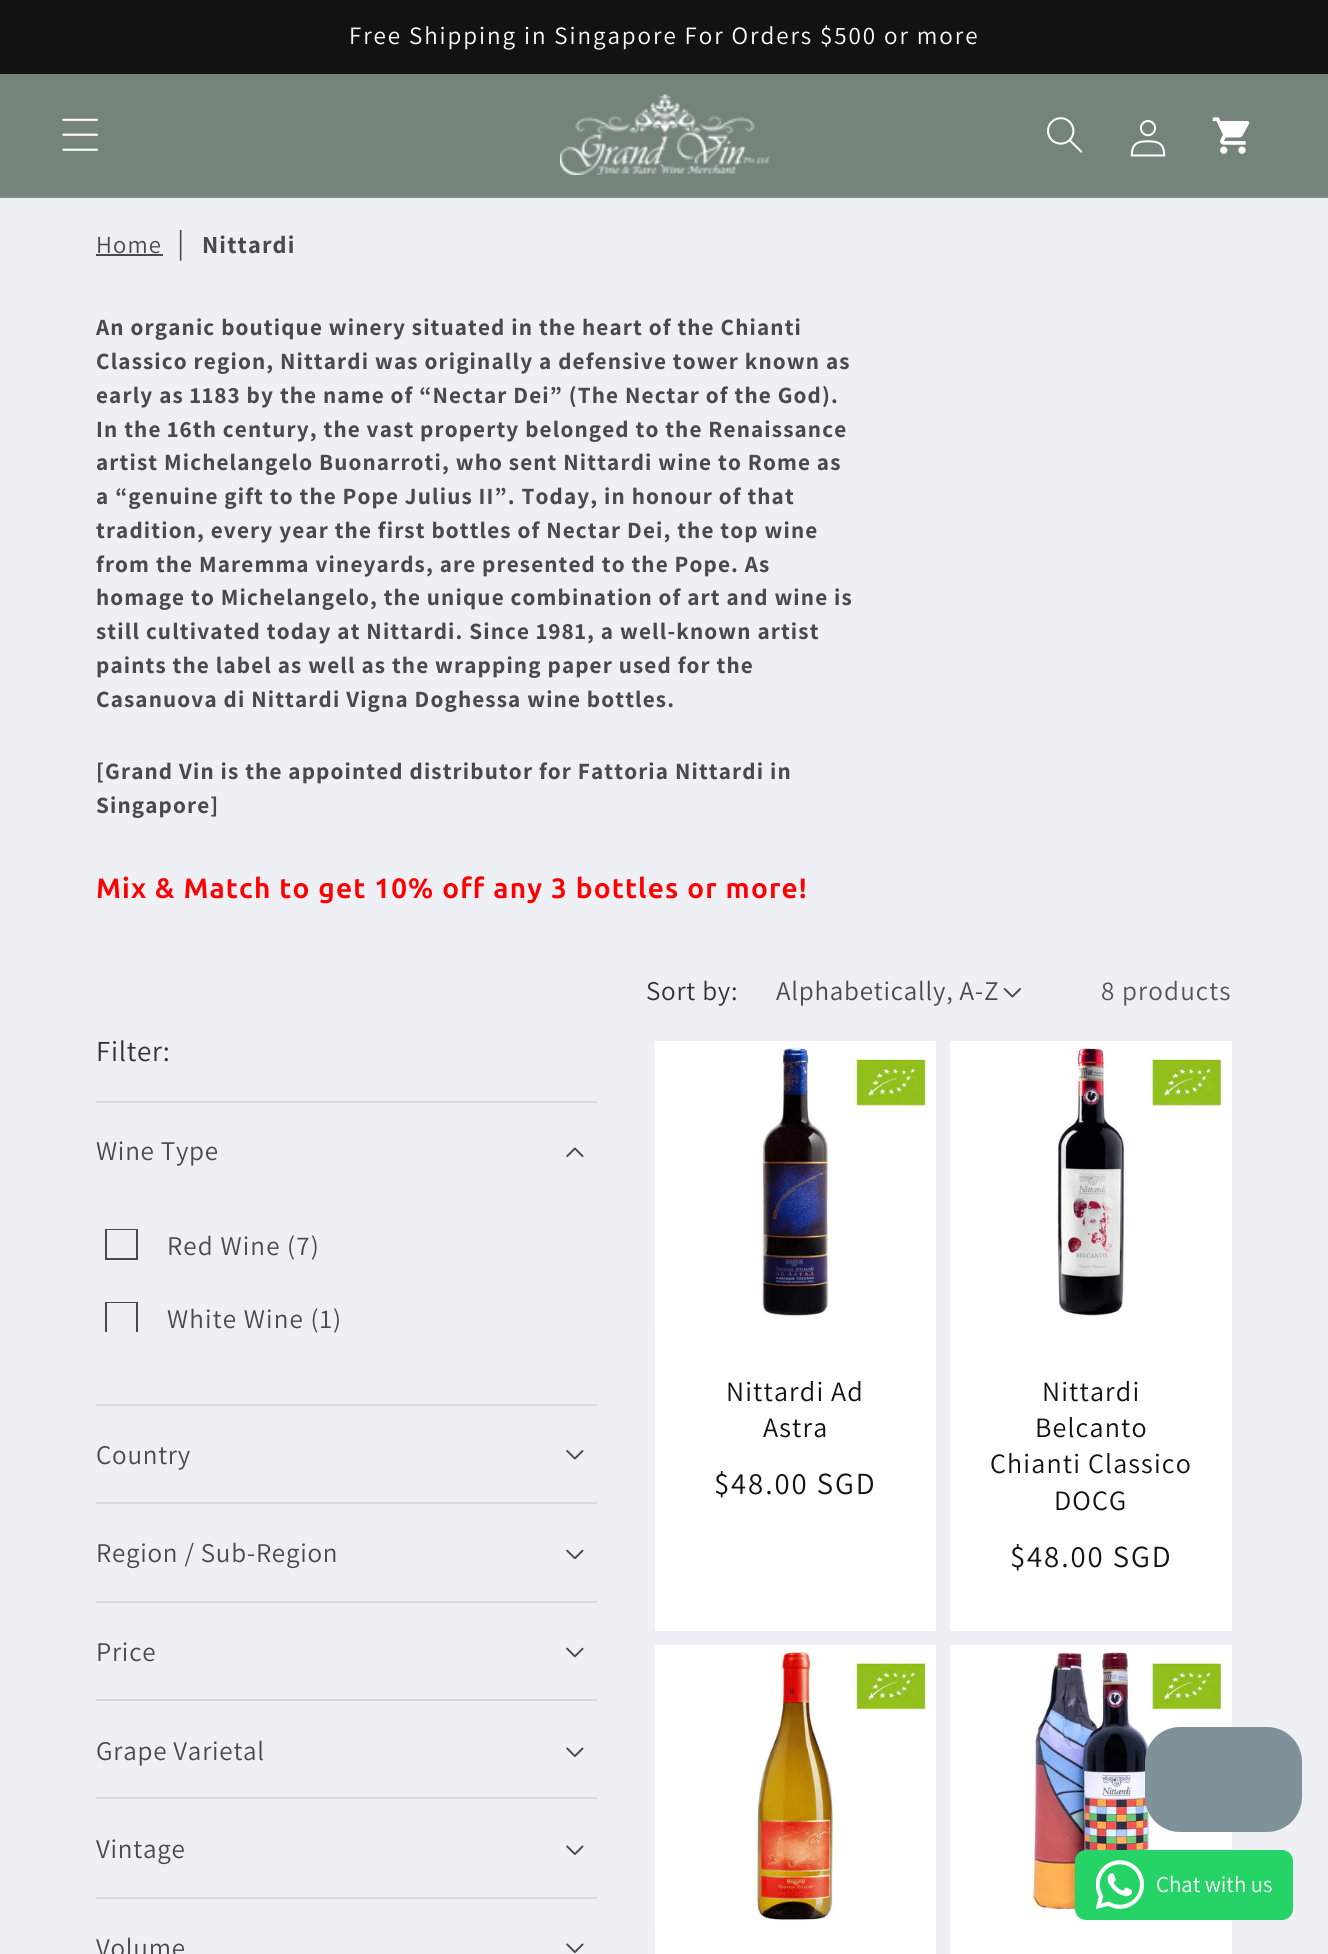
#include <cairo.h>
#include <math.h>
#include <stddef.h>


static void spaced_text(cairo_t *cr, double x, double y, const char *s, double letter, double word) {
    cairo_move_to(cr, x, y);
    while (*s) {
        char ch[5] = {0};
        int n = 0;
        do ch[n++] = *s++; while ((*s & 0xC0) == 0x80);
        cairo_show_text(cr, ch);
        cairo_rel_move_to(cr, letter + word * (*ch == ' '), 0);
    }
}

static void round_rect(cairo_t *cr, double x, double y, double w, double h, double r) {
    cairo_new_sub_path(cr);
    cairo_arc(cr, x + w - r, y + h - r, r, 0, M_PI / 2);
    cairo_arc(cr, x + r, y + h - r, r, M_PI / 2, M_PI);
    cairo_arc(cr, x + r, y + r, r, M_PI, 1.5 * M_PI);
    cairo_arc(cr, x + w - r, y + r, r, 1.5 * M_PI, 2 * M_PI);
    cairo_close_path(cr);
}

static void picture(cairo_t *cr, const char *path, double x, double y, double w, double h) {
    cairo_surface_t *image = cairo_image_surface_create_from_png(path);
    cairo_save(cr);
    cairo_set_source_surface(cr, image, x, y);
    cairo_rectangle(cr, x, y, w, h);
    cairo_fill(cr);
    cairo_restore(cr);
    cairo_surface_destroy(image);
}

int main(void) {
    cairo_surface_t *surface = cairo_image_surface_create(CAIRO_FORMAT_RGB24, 1328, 1954);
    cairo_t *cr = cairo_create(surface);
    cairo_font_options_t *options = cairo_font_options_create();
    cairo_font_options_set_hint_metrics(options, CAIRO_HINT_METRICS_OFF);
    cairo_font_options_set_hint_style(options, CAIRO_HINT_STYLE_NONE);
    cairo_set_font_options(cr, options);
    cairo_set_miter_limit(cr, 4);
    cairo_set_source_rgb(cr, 0.937, 0.941, 0.961);
    cairo_paint(cr);
    cairo_set_source_rgb(cr, 0.071, 0.071, 0.071);
    cairo_rectangle(cr, 0, 0, 1328, 74);
    cairo_fill(cr);
    cairo_select_font_face(cr, "Assistant", CAIRO_FONT_SLANT_NORMAL, CAIRO_FONT_WEIGHT_NORMAL);
    cairo_set_font_size(cr, 25);
    cairo_set_source_rgb(cr, 1, 1, 1);
    spaced_text(cr, 349, 44, "Free Shipping in Singapore For Orders $500 or more", 1.93, 0);
    cairo_set_source_rgb(cr, 0.459, 0.518, 0.471);
    cairo_rectangle(cr, 0, 74, 1328, 122);
    cairo_fill(cr);
    cairo_set_source_rgb(cr, 0.502, 0.557, 0.514);
    cairo_rectangle(cr, 0, 196, 1328, 2);
    cairo_fill(cr);
    picture(cr, "img1.png", 62, 118, 36, 33);
    picture(cr, "img2.png", 560, 94, 210, 81);
    picture(cr, "img3.png", 1047, 117, 35, 36);
    picture(cr, "img4.png", 1130, 120, 36, 37);
    picture(cr, "img5.png", 1212, 117, 38, 37);
    cairo_set_font_size(cr, 24.5);
    cairo_set_source_rgb(cr, 0.286, 0.29, 0.294);
    spaced_text(cr, 96, 253, "Home", 1.15, 0);
    cairo_rectangle(cr, 96, 254, 67, 2);
    cairo_fill(cr);
    cairo_set_font_size(cr, 30.75);
    spaced_text(cr, 177, 253, "|", 1.15, 0);
    cairo_select_font_face(cr, "Assistant", CAIRO_FONT_SLANT_NORMAL, CAIRO_FONT_WEIGHT_BOLD);
    cairo_set_font_size(cr, 24.5);
    spaced_text(cr, 202, 253, "Nittardi", 1.15, 0);
    cairo_set_font_size(cr, 23.25);
    spaced_text(cr, 96, 335, "An organic boutique winery situated in the heart of the Chianti", 1.15, 0);
    spaced_text(cr, 96, 369, "Classico region, Nittardi was originally a defensive tower known as", 1.15, 0);
    spaced_text(cr, 96, 403, "early as 1183 by the name of “Nectar Dei” (The Nectar of the God).", 1.15, 0);
    spaced_text(cr, 96, 437, "In the 16th century, the vast property belonged to the Renaissance", 1.15, 0);
    spaced_text(cr, 96, 470, "artist Michelangelo Buonarroti, who sent Nittardi wine to Rome as", 1.15, 0);
    spaced_text(cr, 96, 504, "a “genuine gift to the Pope Julius II”. Today, in honour of that", 1.15, 0);
    spaced_text(cr, 96, 538, "tradition, every year the first bottles of Nectar Dei, the top wine", 1.15, 0);
    spaced_text(cr, 96, 572, "from the Maremma vineyards, are presented to the Pope. As", 1.15, 0);
    spaced_text(cr, 96, 605, "homage to Michelangelo, the unique combination of art and wine is", 1.15, 0);
    spaced_text(cr, 96, 639, "still cultivated today at Nittardi. Since 1981, a well-known artist", 1.15, 0);
    spaced_text(cr, 96, 673, "paints the label as well as the wrapping paper used for the", 1.15, 0);
    spaced_text(cr, 96, 707, "Casanuova di Nittardi Vigna Doghessa wine bottles.", 1.15, 0);
    spaced_text(cr, 96, 779, "[Grand Vin is the appointed distributor for Fattoria Nittardi in", 1.15, 0);
    spaced_text(cr, 96, 813, "Singapore]", 1.15, 0);
    cairo_select_font_face(cr, "Ubuntu", CAIRO_FONT_SLANT_NORMAL, CAIRO_FONT_WEIGHT_BOLD);
    cairo_set_font_size(cr, 28);
    cairo_set_source_rgb(cr, 1, 0, 0);
    spaced_text(cr, 96, 898, "Mix & Match to get 10% off any 3 bottles or more!", 1.15, 0);
    cairo_select_font_face(cr, "Assistant", CAIRO_FONT_SLANT_NORMAL, CAIRO_FONT_WEIGHT_NORMAL);
    cairo_set_font_size(cr, 27);
    cairo_set_source_rgb(cr, 0.2, 0.2, 0.204);
    spaced_text(cr, 646, 1000, "Sort by:", 0.75, 0);
    cairo_set_source_rgb(cr, 0.286, 0.29, 0.294);
    spaced_text(cr, 776, 1000, "Alphabetically, A-Z", 0.75, 0);
    picture(cr, "img6.png", 1003, 988, 18, 10);
    cairo_set_source_rgb(cr, 0.329, 0.333, 0.337);
    spaced_text(cr, 1101, 1000, "8 products", 1.15, 0);
    cairo_set_font_size(cr, 29);
    cairo_set_source_rgb(cr, 0.2, 0.2, 0.204);
    spaced_text(cr, 96, 1061, "Filter:", 0.75, 0);
    cairo_set_source_rgb(cr, 0.851, 0.855, 0.871);
    cairo_rectangle(cr, 96, 1101, 501, 2);
    cairo_fill(cr);
    cairo_set_font_size(cr, 27);
    cairo_set_source_rgb(cr, 0.286, 0.29, 0.294);
    spaced_text(cr, 96, 1160, "Wine Type", 0.75, 0);
    picture(cr, "img7.png", 566, 1147, 18, 11);
    cairo_save(cr);
    cairo_rectangle(cr, 100, 1229, 44, 31);
    cairo_clip(cr);
    cairo_rectangle(cr, 106, 1229, 31, 30);
    cairo_stroke(cr);
    cairo_restore(cr);
    spaced_text(cr, 167, 1255, "Red Wine (7)", 1.15, 0);
    cairo_save(cr);
    cairo_rectangle(cr, 100, 1302, 44, 30);
    cairo_clip(cr);
    cairo_rectangle(cr, 106, 1302, 31, 31);
    cairo_stroke(cr);
    cairo_restore(cr);
    spaced_text(cr, 167, 1328, "White Wine (1)", 1.15, 0);
    cairo_set_source_rgb(cr, 0.851, 0.855, 0.871);
    cairo_rectangle(cr, 96, 1404, 501, 2);
    cairo_fill(cr);
    cairo_set_source_rgb(cr, 0.286, 0.29, 0.294);
    spaced_text(cr, 96, 1464, "Country", 0.75, 0);
    picture(cr, "img8.png", 566, 1450, 18, 10);
    cairo_set_source_rgb(cr, 0.851, 0.855, 0.871);
    cairo_rectangle(cr, 96, 1502, 501, 2);
    cairo_fill(cr);
    cairo_set_source_rgb(cr, 0.286, 0.29, 0.294);
    spaced_text(cr, 96, 1562, "Region / Sub-Region", 0.75, 0);
    picture(cr, "img9.png", 566, 1549, 18, 10);
    cairo_set_source_rgb(cr, 0.851, 0.855, 0.871);
    cairo_rectangle(cr, 96, 1601, 501, 2);
    cairo_fill(cr);
    cairo_set_source_rgb(cr, 0.286, 0.29, 0.294);
    spaced_text(cr, 96, 1661, "Price", 0.75, 0);
    picture(cr, "img10.png", 566, 1647, 18, 11);
    cairo_set_source_rgb(cr, 0.851, 0.855, 0.871);
    cairo_rectangle(cr, 96, 1699, 501, 2);
    cairo_fill(cr);
    cairo_set_source_rgb(cr, 0.286, 0.29, 0.294);
    spaced_text(cr, 96, 1760, "Grape Varietal", 0.75, 0);
    picture(cr, "img11.png", 566, 1747, 18, 10);
    cairo_set_source_rgb(cr, 0.851, 0.855, 0.871);
    cairo_rectangle(cr, 96, 1797, 501, 2);
    cairo_fill(cr);
    cairo_set_source_rgb(cr, 0.286, 0.29, 0.294);
    spaced_text(cr, 96, 1858, "Vintage", 0.75, 0);
    picture(cr, "img11.png", 566, 1845, 18, 10);
    cairo_set_source_rgb(cr, 0.851, 0.855, 0.871);
    cairo_rectangle(cr, 96, 1897, 501, 2);
    cairo_fill(cr);
    cairo_set_source_rgb(cr, 0.286, 0.29, 0.294);
    spaced_text(cr, 96, 1957, "Volume", 0.75, 0);
    picture(cr, "img11.png", 566, 1943, 18, 10);
    cairo_set_source_rgb(cr, 1, 1, 1);
    cairo_rectangle(cr, 655, 1041, 281, 590);
    cairo_fill(cr);
    picture(cr, "img12.png", 654, 1042, 272, 281);
    cairo_set_font_size(cr, 28);
    cairo_set_source_rgb(cr, 0.071, 0.071, 0.071);
    spaced_text(cr, 726, 1401, "Nittardi Ad", 1.15, 0);
    spaced_text(cr, 763, 1437, "Astra", 1.15, 0);
    cairo_set_font_size(cr, 30.75);
    spaced_text(cr, 714, 1494, "$48.00 SGD", 1.93, 0);
    cairo_set_source_rgb(cr, 1, 1, 1);
    cairo_rectangle(cr, 950, 1041, 282, 590);
    cairo_fill(cr);
    picture(cr, "img13.png", 1057, 1048, 165, 269);
    cairo_set_font_size(cr, 28);
    cairo_set_source_rgb(cr, 0.071, 0.071, 0.071);
    spaced_text(cr, 1042, 1401, "Nittardi", 1.15, 0);
    spaced_text(cr, 1035, 1437, "Belcanto", 1.15, 0);
    spaced_text(cr, 990, 1473, "Chianti Classico", 1.15, 0);
    spaced_text(cr, 1054, 1510, "DOCG", 1.15, 0);
    cairo_set_font_size(cr, 30.75);
    spaced_text(cr, 1010, 1567, "$48.00 SGD", 1.93, 0);
    cairo_set_source_rgb(cr, 1, 1, 1);
    cairo_rectangle(cr, 655, 1645, 281, 309);
    cairo_fill(cr);
    picture(cr, "img14.png", 654, 1645, 275, 281);
    cairo_rectangle(cr, 950, 1645, 282, 309);
    cairo_fill(cr);
    picture(cr, "img15.png", 1032, 1651, 194, 270);
    cairo_set_source_rgb(cr, 0.498, 0.573, 0.6);
    round_rect(cr, 1145, 1727, 157, 105, 35);
    cairo_fill(cr);
    cairo_set_source_rgb(cr, 0.145, 0.827, 0.4);
    round_rect(cr, 1075, 1850, 218, 70, 11);
    cairo_fill(cr);
    picture(cr, "img16.png", 1096, 1860, 49, 49);
    cairo_set_font_size(cr, 22.75);
    cairo_set_source_rgb(cr, 1, 1, 1);
    cairo_move_to(cr, 1156, 1892);
    cairo_show_text(cr, "Chat with us");
    cairo_surface_write_to_png(surface, "page.png");
    cairo_font_options_destroy(options);
    cairo_destroy(cr);
    cairo_surface_destroy(surface);
    return 0;
}
